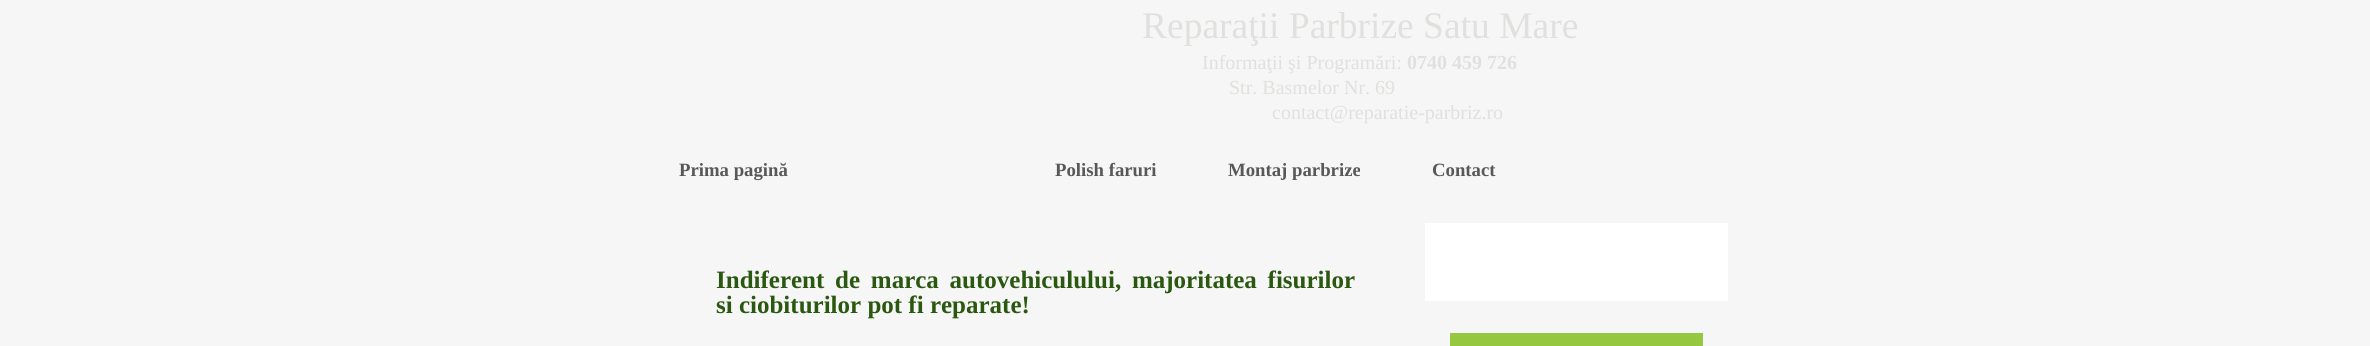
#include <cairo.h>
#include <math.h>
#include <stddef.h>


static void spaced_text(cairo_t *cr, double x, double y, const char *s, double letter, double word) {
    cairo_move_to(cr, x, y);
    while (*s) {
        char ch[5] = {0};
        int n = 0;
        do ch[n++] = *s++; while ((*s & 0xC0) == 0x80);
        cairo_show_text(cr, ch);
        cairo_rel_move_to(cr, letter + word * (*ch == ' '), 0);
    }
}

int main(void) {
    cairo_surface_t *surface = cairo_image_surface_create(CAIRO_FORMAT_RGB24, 2370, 346);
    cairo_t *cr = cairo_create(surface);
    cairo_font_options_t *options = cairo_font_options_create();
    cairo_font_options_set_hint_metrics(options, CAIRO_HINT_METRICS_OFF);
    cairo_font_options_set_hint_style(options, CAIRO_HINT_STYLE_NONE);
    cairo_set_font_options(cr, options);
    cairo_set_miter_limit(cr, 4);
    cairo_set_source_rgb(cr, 0.961, 0.961, 0.961);
    cairo_paint(cr);
    cairo_select_font_face(cr, "Liberation Serif", CAIRO_FONT_SLANT_NORMAL, CAIRO_FONT_WEIGHT_NORMAL);
    cairo_set_font_size(cr, 37.5);
    cairo_set_source_rgb(cr, 0.878, 0.878, 0.871);
    cairo_move_to(cr, 1142, 38);
    cairo_show_text(cr, "Reparaţii Parbrize Satu Mare");
    cairo_set_font_size(cr, 20);
    cairo_move_to(cr, 1202, 69);
    cairo_show_text(cr, "Informaţii şi Programări:");
    cairo_select_font_face(cr, "Liberation Serif", CAIRO_FONT_SLANT_NORMAL, CAIRO_FONT_WEIGHT_BOLD);
    cairo_move_to(cr, 1407, 69);
    cairo_show_text(cr, "0740 459 726");
    cairo_select_font_face(cr, "Liberation Serif", CAIRO_FONT_SLANT_NORMAL, CAIRO_FONT_WEIGHT_NORMAL);
    cairo_move_to(cr, 1229, 94);
    cairo_show_text(cr, "Str. Basmelor Nr. 69");
    cairo_move_to(cr, 1272, 119);
    cairo_show_text(cr, "contact@reparatie-parbriz.ro");
    cairo_select_font_face(cr, "Liberation Serif", CAIRO_FONT_SLANT_NORMAL, CAIRO_FONT_WEIGHT_BOLD);
    cairo_set_font_size(cr, 18.75);
    cairo_set_source_rgb(cr, 0.345, 0.345, 0.345);
    cairo_move_to(cr, 679, 176);
    cairo_show_text(cr, "Prima pagină");
    cairo_move_to(cr, 1055, 176);
    cairo_show_text(cr, "Polish faruri");
    cairo_move_to(cr, 1228, 176);
    cairo_show_text(cr, "Montaj parbrize");
    cairo_move_to(cr, 1432, 176);
    cairo_show_text(cr, "Contact");
    cairo_set_font_size(cr, 25);
    cairo_set_source_rgb(cr, 0.169, 0.345, 0.063);
    spaced_text(cr, 716, 288, "Indiferent de marca autovehiculului, majoritatea fisurilor", 0, 4.5);
    cairo_move_to(cr, 716, 313);
    cairo_show_text(cr, "si ciobiturilor pot fi reparate!");
    cairo_set_source_rgb(cr, 1, 1, 1);
    cairo_rectangle(cr, 1425, 223, 303, 78);
    cairo_fill(cr);
    cairo_set_source_rgb(cr, 0.584, 0.784, 0.251);
    cairo_rectangle(cr, 1450, 333, 253, 13);
    cairo_fill(cr);
    cairo_surface_write_to_png(surface, "page.png");
    cairo_font_options_destroy(options);
    cairo_destroy(cr);
    cairo_surface_destroy(surface);
    return 0;
}
